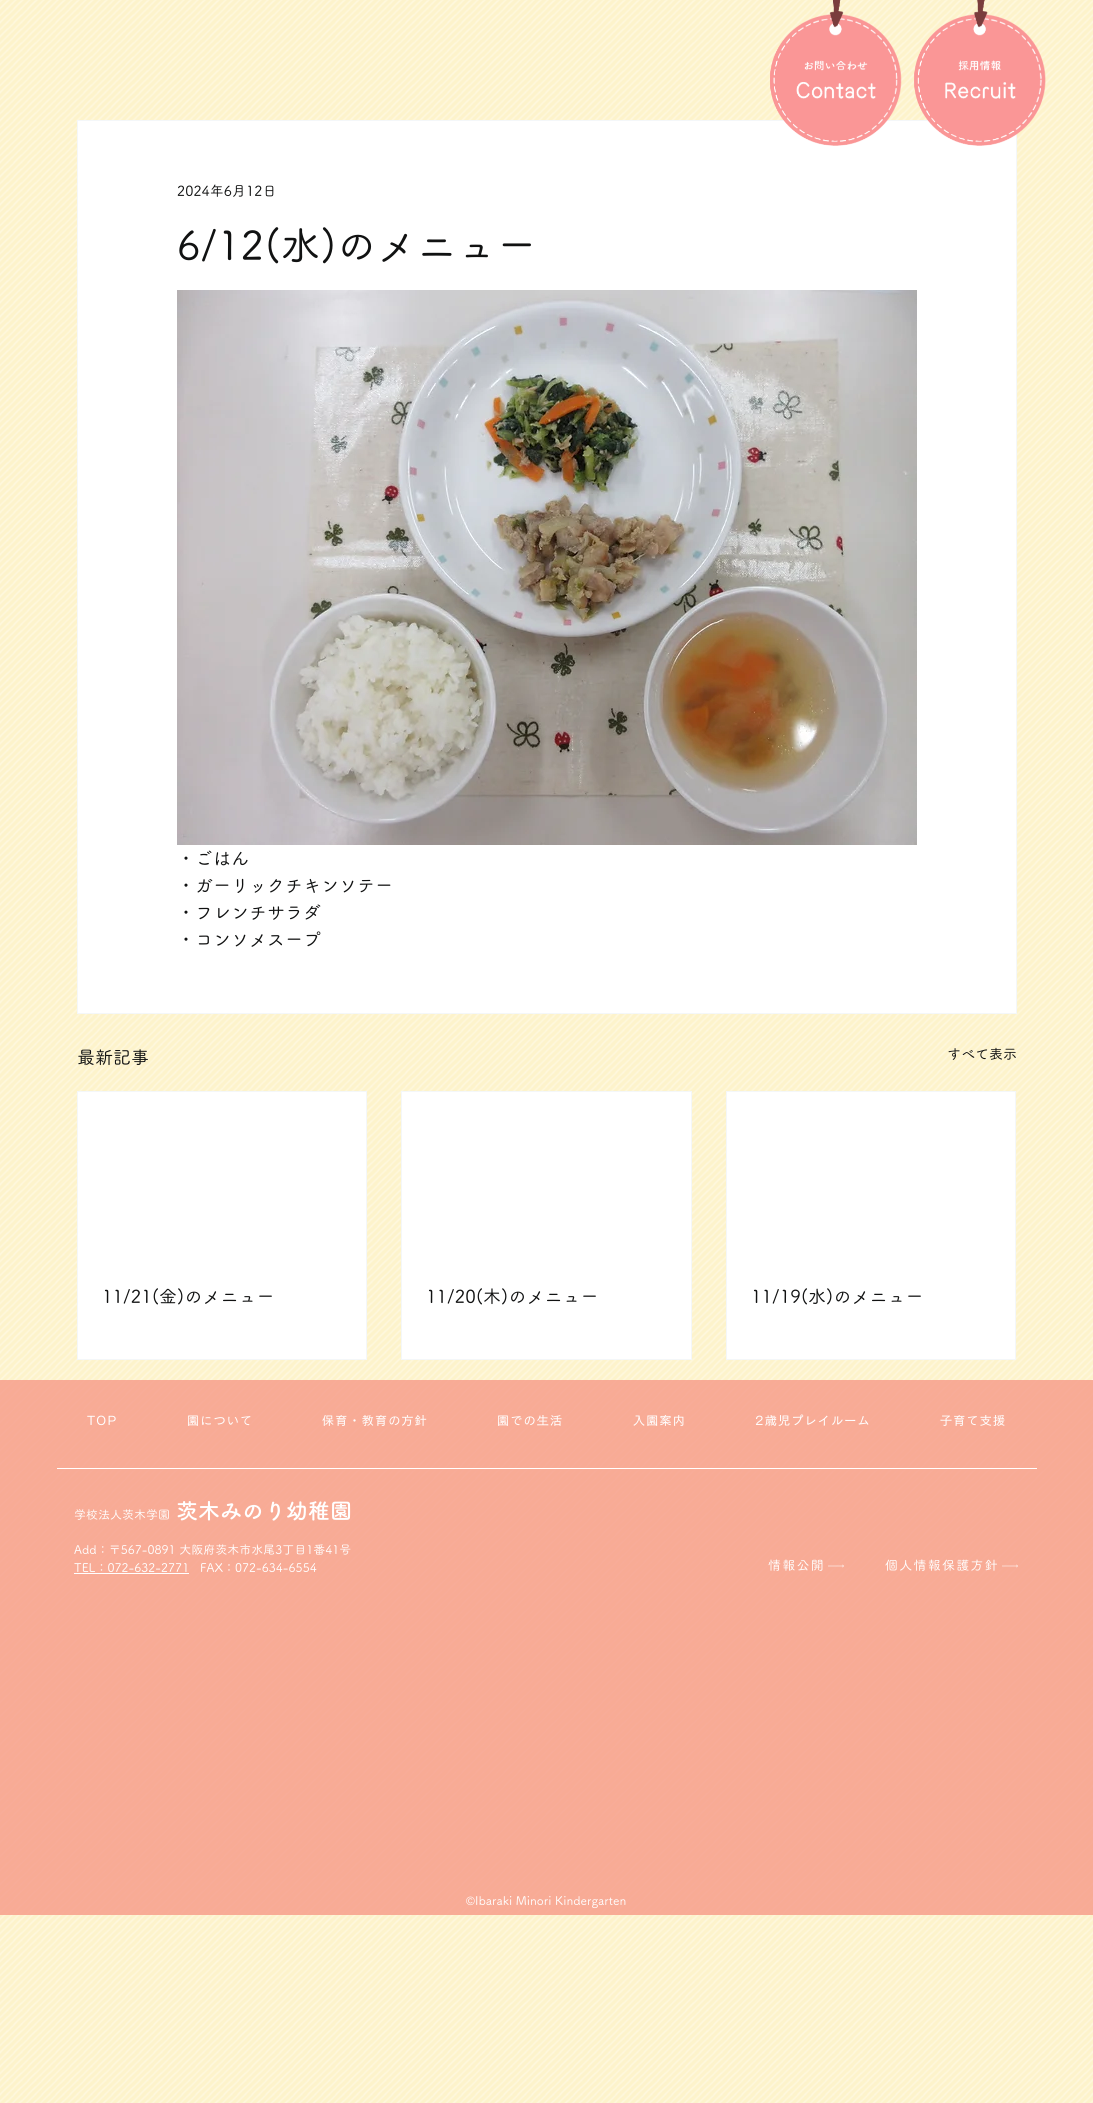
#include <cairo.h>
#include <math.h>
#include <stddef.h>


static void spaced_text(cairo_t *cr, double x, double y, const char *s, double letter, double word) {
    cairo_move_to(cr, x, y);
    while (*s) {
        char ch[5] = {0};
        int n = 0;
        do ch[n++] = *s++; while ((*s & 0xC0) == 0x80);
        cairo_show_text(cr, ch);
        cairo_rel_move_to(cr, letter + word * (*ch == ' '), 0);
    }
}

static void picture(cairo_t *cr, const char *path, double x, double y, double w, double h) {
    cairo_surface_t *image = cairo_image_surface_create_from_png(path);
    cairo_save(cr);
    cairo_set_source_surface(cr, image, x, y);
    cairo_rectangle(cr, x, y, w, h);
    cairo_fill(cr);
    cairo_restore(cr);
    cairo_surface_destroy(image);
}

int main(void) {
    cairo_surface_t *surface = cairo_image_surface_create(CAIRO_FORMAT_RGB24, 1093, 2103);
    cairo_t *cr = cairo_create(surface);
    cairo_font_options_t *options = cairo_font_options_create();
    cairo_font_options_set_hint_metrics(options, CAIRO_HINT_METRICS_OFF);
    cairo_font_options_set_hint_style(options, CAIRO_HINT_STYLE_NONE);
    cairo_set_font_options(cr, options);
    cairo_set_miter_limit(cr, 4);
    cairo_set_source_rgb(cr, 0.992, 0.953, 0.796);
    cairo_paint(cr);
    picture(cr, "img1.png", 0, 0, 1093, 2103);
    cairo_set_source_rgb(cr, 1, 1, 1);
    cairo_rectangle(cr, 77.5, 120.5, 939, 893);
    cairo_fill_preserve(cr);
    cairo_set_source_rgb(cr, 0.957, 0.965, 0.973);
    cairo_set_line_width(cr, 1);
    cairo_stroke(cr);
    picture(cr, "img2.png", 770, 0, 132, 146);
    picture(cr, "img3.png", 914, 0, 132, 146);
    cairo_select_font_face(cr, "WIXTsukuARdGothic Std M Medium", CAIRO_FONT_SLANT_NORMAL, CAIRO_FONT_WEIGHT_NORMAL);
    cairo_set_font_size(cr, 14);
    cairo_set_source_rgb(cr, 0.067, 0.071, 0.071);
    cairo_move_to(cr, 177, 196);
    cairo_show_text(cr, "2024年6月12日");
    cairo_set_font_size(cr, 40);
    cairo_move_to(cr, 177, 260);
    cairo_show_text(cr, "6/12(水)のメニュー");
    picture(cr, "img4.png", 177, 290, 740, 555);
    cairo_set_font_size(cr, 18);
    cairo_move_to(cr, 177, 865);
    cairo_show_text(cr, "・ごはん");
    cairo_move_to(cr, 177, 892);
    cairo_show_text(cr, "・ガーリックチキンソテー");
    cairo_move_to(cr, 177, 919);
    cairo_show_text(cr, "・フレンチサラダ");
    cairo_move_to(cr, 177, 946);
    cairo_show_text(cr, "・コンソメスープ");
    cairo_move_to(cr, 77, 1064);
    cairo_show_text(cr, "最新記事");
    cairo_set_font_size(cr, 14);
    cairo_move_to(cr, 947, 1059);
    cairo_show_text(cr, "すべて表示");
    cairo_set_source_rgb(cr, 1, 1, 1);
    cairo_rectangle(cr, 77.5, 1091.5, 289, 268);
    cairo_fill_preserve(cr);
    cairo_set_source_rgb(cr, 0.957, 0.965, 0.973);
    cairo_stroke(cr);
    cairo_set_font_size(cr, 18);
    cairo_set_source_rgb(cr, 0.067, 0.071, 0.071);
    cairo_move_to(cr, 102, 1303);
    cairo_show_text(cr, "11/21(金)のメニュー");
    cairo_set_source_rgb(cr, 1, 1, 1);
    cairo_rectangle(cr, 401.5, 1091.5, 290, 268);
    cairo_fill_preserve(cr);
    cairo_set_source_rgb(cr, 0.957, 0.965, 0.973);
    cairo_stroke(cr);
    cairo_set_source_rgb(cr, 0.067, 0.071, 0.071);
    cairo_move_to(cr, 426, 1303);
    cairo_show_text(cr, "11/20(木)のメニュー");
    cairo_set_source_rgb(cr, 1, 1, 1);
    cairo_rectangle(cr, 726.5, 1091.5, 289, 268);
    cairo_fill_preserve(cr);
    cairo_set_source_rgb(cr, 0.957, 0.965, 0.973);
    cairo_stroke(cr);
    cairo_set_source_rgb(cr, 0.067, 0.071, 0.071);
    cairo_move_to(cr, 751, 1303);
    cairo_show_text(cr, "11/19(水)のメニュー");
    cairo_set_source_rgba(cr, 0.965, 0.608, 0.537, 0.82);
    cairo_rectangle(cr, 0, 1380, 1093, 535);
    cairo_fill(cr);
    cairo_select_font_face(cr, "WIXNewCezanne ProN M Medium", CAIRO_FONT_SLANT_NORMAL, CAIRO_FONT_WEIGHT_NORMAL);
    cairo_set_font_size(cr, 12);
    cairo_set_source_rgb(cr, 1, 1, 1);
    spaced_text(cr, 87, 1425, "TOP", 1.25, 0);
    spaced_text(cr, 187, 1425, "園について", 1.25, 0);
    spaced_text(cr, 322, 1425, "保育・教育の方針", 1.25, 0);
    spaced_text(cr, 497, 1425, "園での生活", 1.25, 0);
    spaced_text(cr, 633, 1425, "入園案内", 1.25, 0);
    spaced_text(cr, 755, 1425, "2歳児プレイルーム", 1.25, 0);
    spaced_text(cr, 940, 1425, "子育て支援", 1.25, 0);
    cairo_rectangle(cr, 57, 1468, 980, 1);
    cairo_fill(cr);
    cairo_select_font_face(cr, "WIXTsukuARdGothic Std M Medium", CAIRO_FONT_SLANT_NORMAL, CAIRO_FONT_WEIGHT_NORMAL);
    cairo_move_to(cr, 74, 1519);
    cairo_show_text(cr, "学校法人茨木学園");
    cairo_select_font_face(cr, "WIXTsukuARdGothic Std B", CAIRO_FONT_SLANT_NORMAL, CAIRO_FONT_WEIGHT_BOLD);
    cairo_set_font_size(cr, 22);
    cairo_move_to(cr, 176, 1519);
    cairo_show_text(cr, "茨木みのり幼稚園");
    cairo_select_font_face(cr, "WIXTsukuARdGothic Std M Medium", CAIRO_FONT_SLANT_NORMAL, CAIRO_FONT_WEIGHT_NORMAL);
    cairo_set_font_size(cr, 12);
    cairo_move_to(cr, 74, 1554);
    cairo_show_text(cr, "Add：〒567-0891 大阪府茨木市水尾3丁目1番41号");
    cairo_move_to(cr, 74, 1572);
    cairo_show_text(cr, "TEL：072-632-2771");
    cairo_rectangle(cr, 74, 1573, 115, 1);
    cairo_fill(cr);
    cairo_move_to(cr, 200, 1572);
    cairo_show_text(cr, "FAX：072-634-6554");
    cairo_set_font_size(cr, 13);
    spaced_text(cr, 768, 1570, "情報公開", 1.25, 0);
    picture(cr, "img5.png", 828, 1564, 16, 4);
    spaced_text(cr, 885, 1570, "個人情報保護方針", 1.25, 0);
    picture(cr, "img6.png", 1002, 1564, 16, 4);
    cairo_select_font_face(cr, "Liberation Sans", CAIRO_FONT_SLANT_NORMAL, CAIRO_FONT_WEIGHT_NORMAL);
    cairo_set_font_size(cr, 12);
    cairo_move_to(cr, 466, 1905);
    cairo_show_text(cr, "©");
    cairo_select_font_face(cr, "WIXTsukuARdGothic Std M Medium", CAIRO_FONT_SLANT_NORMAL, CAIRO_FONT_WEIGHT_NORMAL);
    cairo_move_to(cr, 475, 1905);
    cairo_show_text(cr, "Ibaraki Minori Kindergarten");
    cairo_surface_write_to_png(surface, "page.png");
    cairo_font_options_destroy(options);
    cairo_destroy(cr);
    cairo_surface_destroy(surface);
    return 0;
}
